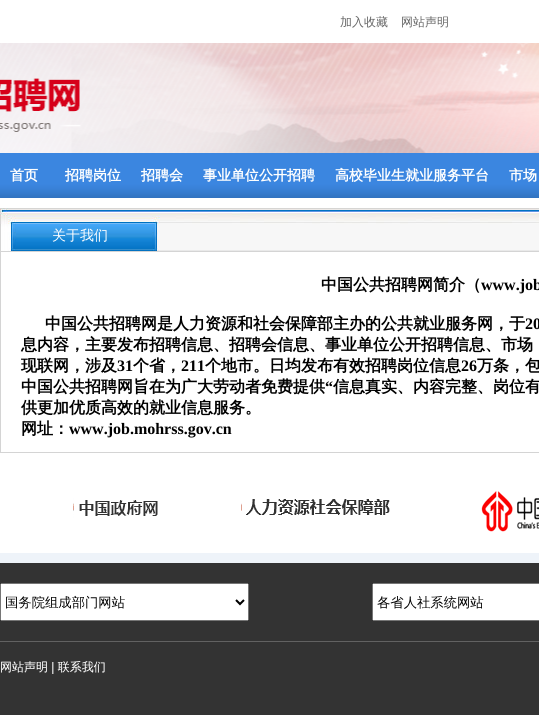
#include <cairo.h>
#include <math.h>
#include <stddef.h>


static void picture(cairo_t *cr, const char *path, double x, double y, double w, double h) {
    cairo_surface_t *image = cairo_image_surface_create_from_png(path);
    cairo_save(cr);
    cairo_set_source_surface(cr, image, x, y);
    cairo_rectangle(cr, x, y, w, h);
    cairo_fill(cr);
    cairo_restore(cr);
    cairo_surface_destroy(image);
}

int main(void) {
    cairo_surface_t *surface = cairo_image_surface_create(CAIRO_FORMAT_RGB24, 539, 715);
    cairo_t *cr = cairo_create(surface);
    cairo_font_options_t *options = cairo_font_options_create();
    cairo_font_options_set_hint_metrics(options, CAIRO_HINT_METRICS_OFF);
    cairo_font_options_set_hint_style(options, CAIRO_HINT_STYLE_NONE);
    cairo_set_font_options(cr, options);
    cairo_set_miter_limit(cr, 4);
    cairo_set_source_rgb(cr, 1, 1, 1);
    cairo_paint(cr);
    cairo_select_font_face(cr, "WenQuanYi Zen Hei Medium", CAIRO_FONT_SLANT_NORMAL, CAIRO_FONT_WEIGHT_NORMAL);
    cairo_set_font_size(cr, 12);
    cairo_set_source_rgb(cr, 0.4, 0.4, 0.4);
    cairo_move_to(cr, 340, 26);
    cairo_show_text(cr, "加入收藏");
    cairo_move_to(cr, 401, 26);
    cairo_show_text(cr, "网站声明");
    picture(cr, "img1.png", 0, 43, 539, 110);
    picture(cr, "img2.png", 0, 153, 539, 45);
    cairo_select_font_face(cr, "WenQuanYi Zen Hei", CAIRO_FONT_SLANT_NORMAL, CAIRO_FONT_WEIGHT_BOLD);
    cairo_set_font_size(cr, 14);
    cairo_set_source_rgb(cr, 1, 1, 1);
    cairo_move_to(cr, 10, 180);
    cairo_show_text(cr, "首页");
    cairo_move_to(cr, 65, 180);
    cairo_show_text(cr, "招聘岗位");
    cairo_move_to(cr, 141, 180);
    cairo_show_text(cr, "招聘会");
    cairo_move_to(cr, 203, 180);
    cairo_show_text(cr, "事业单位公开招聘");
    cairo_move_to(cr, 335, 180);
    cairo_show_text(cr, "高校毕业生就业服务平台");
    cairo_move_to(cr, 509, 180);
    cairo_show_text(cr, "市场");
    picture(cr, "img3.png", 0, 208, 539, 43);
    cairo_select_font_face(cr, "WenQuanYi Zen Hei Medium", CAIRO_FONT_SLANT_NORMAL, CAIRO_FONT_WEIGHT_NORMAL);
    cairo_move_to(cr, 52, 240);
    cairo_show_text(cr, "关于我们");
    cairo_rectangle(cr, 0.5, 251.5, 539, 201);
    cairo_set_source_rgb(cr, 0.831, 0.831, 0.831);
    cairo_set_line_width(cr, 1);
    cairo_stroke(cr);
    cairo_select_font_face(cr, "WenQuanYi Zen Hei", CAIRO_FONT_SLANT_NORMAL, CAIRO_FONT_WEIGHT_BOLD);
    cairo_set_font_size(cr, 16);
    cairo_set_source_rgb(cr, 0, 0, 0);
    cairo_move_to(cr, 321, 290);
    cairo_show_text(cr, "中国公共招聘网简介（");
    cairo_select_font_face(cr, "Liberation Serif", CAIRO_FONT_SLANT_NORMAL, CAIRO_FONT_WEIGHT_BOLD);
    cairo_move_to(cr, 481, 290);
    cairo_show_text(cr, "www.job");
    cairo_select_font_face(cr, "WenQuanYi Zen Hei", CAIRO_FONT_SLANT_NORMAL, CAIRO_FONT_WEIGHT_BOLD);
    cairo_move_to(cr, 45, 329);
    cairo_show_text(cr, "中国公共招聘网是人力资源和社会保障部主办的公共就业服务网，于");
    cairo_select_font_face(cr, "Liberation Serif", CAIRO_FONT_SLANT_NORMAL, CAIRO_FONT_WEIGHT_BOLD);
    cairo_move_to(cr, 525, 329);
    cairo_show_text(cr, "20");
    cairo_select_font_face(cr, "WenQuanYi Zen Hei", CAIRO_FONT_SLANT_NORMAL, CAIRO_FONT_WEIGHT_BOLD);
    cairo_move_to(cr, 21, 350);
    cairo_show_text(cr, "息内容，主要发布招聘信息、招聘会信息、事业单位公开招聘信息、市场");
    cairo_move_to(cr, 21, 371);
    cairo_show_text(cr, "现联网，涉及");
    cairo_select_font_face(cr, "Liberation Serif", CAIRO_FONT_SLANT_NORMAL, CAIRO_FONT_WEIGHT_BOLD);
    cairo_move_to(cr, 117, 371);
    cairo_show_text(cr, "31");
    cairo_select_font_face(cr, "WenQuanYi Zen Hei", CAIRO_FONT_SLANT_NORMAL, CAIRO_FONT_WEIGHT_BOLD);
    cairo_move_to(cr, 133, 371);
    cairo_show_text(cr, "个省，");
    cairo_select_font_face(cr, "Liberation Serif", CAIRO_FONT_SLANT_NORMAL, CAIRO_FONT_WEIGHT_BOLD);
    cairo_move_to(cr, 181, 371);
    cairo_show_text(cr, "211");
    cairo_select_font_face(cr, "WenQuanYi Zen Hei", CAIRO_FONT_SLANT_NORMAL, CAIRO_FONT_WEIGHT_BOLD);
    cairo_move_to(cr, 205, 371);
    cairo_show_text(cr, "个地市。日均发布有效招聘岗位信息");
    cairo_select_font_face(cr, "Liberation Serif", CAIRO_FONT_SLANT_NORMAL, CAIRO_FONT_WEIGHT_BOLD);
    cairo_move_to(cr, 461, 371);
    cairo_show_text(cr, "26");
    cairo_select_font_face(cr, "WenQuanYi Zen Hei", CAIRO_FONT_SLANT_NORMAL, CAIRO_FONT_WEIGHT_BOLD);
    cairo_move_to(cr, 477, 371);
    cairo_show_text(cr, "万条，包");
    cairo_move_to(cr, 21, 392);
    cairo_show_text(cr, "中国公共招聘网旨在为广大劳动者免费提供");
    cairo_select_font_face(cr, "Liberation Serif", CAIRO_FONT_SLANT_NORMAL, CAIRO_FONT_WEIGHT_BOLD);
    cairo_move_to(cr, 325, 392);
    cairo_show_text(cr, "“");
    cairo_select_font_face(cr, "WenQuanYi Zen Hei", CAIRO_FONT_SLANT_NORMAL, CAIRO_FONT_WEIGHT_BOLD);
    cairo_move_to(cr, 333, 392);
    cairo_show_text(cr, "信息真实、内容完整、岗位有");
    cairo_move_to(cr, 21, 413);
    cairo_show_text(cr, "供更加优质高效的就业信息服务。");
    cairo_move_to(cr, 21, 434);
    cairo_show_text(cr, "网址：");
    cairo_select_font_face(cr, "Liberation Serif", CAIRO_FONT_SLANT_NORMAL, CAIRO_FONT_WEIGHT_BOLD);
    cairo_move_to(cr, 69, 434);
    cairo_show_text(cr, "www.job.mohrss.gov.cn");
    picture(cr, "img4.png", 0, 491, 539, 224);
    cairo_surface_write_to_png(surface, "page.png");
    cairo_font_options_destroy(options);
    cairo_destroy(cr);
    cairo_surface_destroy(surface);
    return 0;
}
